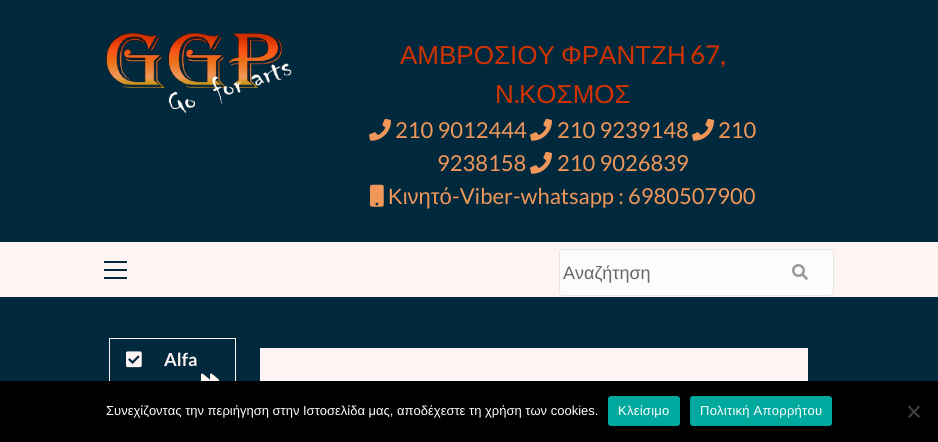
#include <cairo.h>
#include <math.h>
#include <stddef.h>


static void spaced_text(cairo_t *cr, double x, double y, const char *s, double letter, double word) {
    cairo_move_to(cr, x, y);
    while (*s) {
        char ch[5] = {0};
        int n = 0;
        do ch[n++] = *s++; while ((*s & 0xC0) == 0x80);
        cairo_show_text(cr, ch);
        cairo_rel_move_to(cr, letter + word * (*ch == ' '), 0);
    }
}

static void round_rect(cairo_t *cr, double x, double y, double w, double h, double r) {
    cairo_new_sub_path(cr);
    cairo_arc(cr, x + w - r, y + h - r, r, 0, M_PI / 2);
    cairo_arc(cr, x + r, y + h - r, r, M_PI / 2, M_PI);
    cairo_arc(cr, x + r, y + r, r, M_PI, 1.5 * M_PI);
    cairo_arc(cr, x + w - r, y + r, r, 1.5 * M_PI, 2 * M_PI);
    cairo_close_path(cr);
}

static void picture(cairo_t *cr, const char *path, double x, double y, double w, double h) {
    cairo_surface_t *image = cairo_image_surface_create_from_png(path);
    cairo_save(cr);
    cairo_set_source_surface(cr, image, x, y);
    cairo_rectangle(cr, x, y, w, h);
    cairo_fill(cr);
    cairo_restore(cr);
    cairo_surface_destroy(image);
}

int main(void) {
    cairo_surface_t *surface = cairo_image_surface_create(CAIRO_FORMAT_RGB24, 938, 442);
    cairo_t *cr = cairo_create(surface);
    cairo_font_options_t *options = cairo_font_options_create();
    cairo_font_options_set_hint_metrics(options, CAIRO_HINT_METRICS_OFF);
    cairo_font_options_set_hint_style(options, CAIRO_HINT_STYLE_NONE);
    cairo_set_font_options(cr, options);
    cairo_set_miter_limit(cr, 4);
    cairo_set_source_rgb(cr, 0, 0.161, 0.239);
    cairo_paint(cr);
    picture(cr, "img1.png", 106, 33, 186, 81);
    cairo_select_font_face(cr, "Liberation Sans", CAIRO_FONT_SLANT_NORMAL, CAIRO_FONT_WEIGHT_NORMAL);
    cairo_set_font_size(cr, 26);
    cairo_set_source_rgb(cr, 0.816, 0.196, 0);
    spaced_text(cr, 400, 64, "ΑΜΒΡΟΣΙΟΥ ΦΡΑΝΤΖΗ", 0, -1);
    cairo_select_font_face(cr, "Lato", CAIRO_FONT_SLANT_NORMAL, CAIRO_FONT_WEIGHT_NORMAL);
    cairo_move_to(cr, 690, 64);
    cairo_show_text(cr, "67,");
    cairo_select_font_face(cr, "Liberation Sans", CAIRO_FONT_SLANT_NORMAL, CAIRO_FONT_WEIGHT_NORMAL);
    cairo_move_to(cr, 495, 103);
    cairo_show_text(cr, "Ν");
    cairo_select_font_face(cr, "Lato", CAIRO_FONT_SLANT_NORMAL, CAIRO_FONT_WEIGHT_NORMAL);
    cairo_move_to(cr, 514, 103);
    cairo_show_text(cr, ".");
    cairo_select_font_face(cr, "Liberation Sans", CAIRO_FONT_SLANT_NORMAL, CAIRO_FONT_WEIGHT_NORMAL);
    cairo_move_to(cr, 519, 103);
    cairo_show_text(cr, "ΚΟΣΜΟΣ");
    picture(cr, "img2.png", 369, 118, 22, 23);
    cairo_select_font_face(cr, "Lato", CAIRO_FONT_SLANT_NORMAL, CAIRO_FONT_WEIGHT_NORMAL);
    cairo_set_font_size(cr, 22);
    cairo_set_source_rgb(cr, 0.945, 0.592, 0.349);
    cairo_move_to(cr, 395, 138);
    cairo_show_text(cr, "210 9012444");
    picture(cr, "img2.png", 692, 118, 22, 23);
    cairo_move_to(cr, 718, 138);
    cairo_show_text(cr, "210");
    cairo_move_to(cr, 437, 171);
    cairo_show_text(cr, "9238158");
    picture(cr, "img2.png", 530, 118, 22, 23);
    cairo_move_to(cr, 557, 138);
    cairo_show_text(cr, "210 9239148");
    picture(cr, "img2.png", 530, 151, 22, 23);
    cairo_move_to(cr, 557, 171);
    cairo_show_text(cr, "210 9026839");
    picture(cr, "img3.png", 370, 184, 14, 23);
    cairo_select_font_face(cr, "Liberation Sans", CAIRO_FONT_SLANT_NORMAL, CAIRO_FONT_WEIGHT_NORMAL);
    cairo_move_to(cr, 388, 204);
    cairo_show_text(cr, "Κινητό");
    cairo_select_font_face(cr, "Lato", CAIRO_FONT_SLANT_NORMAL, CAIRO_FONT_WEIGHT_NORMAL);
    cairo_move_to(cr, 452, 204);
    cairo_show_text(cr, "-Viber-whatsapp : 6980507900");
    cairo_set_source_rgb(cr, 1, 0.957, 0.957);
    cairo_rectangle(cr, 0, 242, 938, 55);
    cairo_fill(cr);
    cairo_set_source_rgb(cr, 0, 0.161, 0.239);
    cairo_rectangle(cr, 104, 269, 23, 2);
    cairo_fill(cr);
    cairo_rectangle(cr, 104, 261, 23, 2);
    cairo_fill(cr);
    cairo_rectangle(cr, 104, 277, 23, 2);
    cairo_fill(cr);
    cairo_set_source_rgb(cr, 0.988, 0.988, 0.988);
    round_rect(cr, 559.5, 249.5, 274, 46, 3.5);
    cairo_fill_preserve(cr);
    cairo_set_source_rgb(cr, 0.902, 0.902, 0.902);
    cairo_set_line_width(cr, 1);
    cairo_stroke(cr);
    cairo_select_font_face(cr, "Liberation Sans", CAIRO_FONT_SLANT_NORMAL, CAIRO_FONT_WEIGHT_NORMAL);
    cairo_set_font_size(cr, 18);
    cairo_set_source_rgb(cr, 0.4, 0.4, 0.4);
    cairo_move_to(cr, 563, 279);
    cairo_show_text(cr, "Αναζήτηση");
    picture(cr, "img4.png", 792, 264, 16, 16);
    cairo_set_source_rgb(cr, 1, 0.957, 0.957);
    cairo_rectangle(cr, 109, 338, 127, 43);
    cairo_fill(cr);
    cairo_set_source_rgb(cr, 0, 0.161, 0.239);
    cairo_rectangle(cr, 110, 339, 125, 42);
    cairo_fill(cr);
    picture(cr, "img5.png", 126, 351, 16, 17);
    cairo_select_font_face(cr, "Lato", CAIRO_FONT_SLANT_NORMAL, CAIRO_FONT_WEIGHT_BOLD);
    cairo_set_source_rgb(cr, 1, 0.957, 0.957);
    cairo_move_to(cr, 164, 366);
    cairo_show_text(cr, "Alfa");
    picture(cr, "img6.png", 201, 373, 18, 8);
    cairo_rectangle(cr, 260, 348, 548, 33);
    cairo_fill(cr);
    cairo_set_source_rgb(cr, 0, 0, 0);
    cairo_rectangle(cr, 0, 381, 938, 61);
    cairo_fill(cr);
    cairo_select_font_face(cr, "Liberation Sans", CAIRO_FONT_SLANT_NORMAL, CAIRO_FONT_WEIGHT_NORMAL);
    cairo_set_font_size(cr, 13);
    cairo_set_source_rgb(cr, 1, 1, 1);
    cairo_move_to(cr, 106, 415);
    cairo_show_text(cr, "Συνεχίζοντας την περιήγηση στην Ιστοσελίδα μας, αποδέχεστε τη χρήση των cookies.");
    cairo_set_source_rgb(cr, 0, 0.663, 0.616);
    round_rect(cr, 608, 396, 72, 30, 3);
    cairo_fill(cr);
    cairo_set_source_rgb(cr, 1, 1, 1);
    spaced_text(cr, 618, 415, "Κλείσιμο", 0.25, 0);
    cairo_set_source_rgb(cr, 0, 0.663, 0.616);
    round_rect(cr, 690, 396, 142, 30, 3);
    cairo_fill(cr);
    cairo_set_source_rgb(cr, 1, 1, 1);
    spaced_text(cr, 700, 415, "Πολιτική Απορρήτου", 0.25, 0);
    cairo_set_source_rgb(cr, 0.251, 0.251, 0.251);
    cairo_new_path(cr);
    cairo_move_to(cr, 918.5, 405.5);
    cairo_line_to(cr, 920, 407);
    cairo_line_to(cr, 909.5, 418);
    cairo_line_to(cr, 908, 416.5);
    cairo_close_path(cr);
    cairo_fill(cr);
    cairo_new_path(cr);
    cairo_move_to(cr, 908, 407);
    cairo_line_to(cr, 909.5, 405.5);
    cairo_line_to(cr, 920, 416.5);
    cairo_line_to(cr, 918.5, 418);
    cairo_close_path(cr);
    cairo_fill(cr);
    cairo_surface_write_to_png(surface, "page.png");
    cairo_font_options_destroy(options);
    cairo_destroy(cr);
    cairo_surface_destroy(surface);
    return 0;
}
